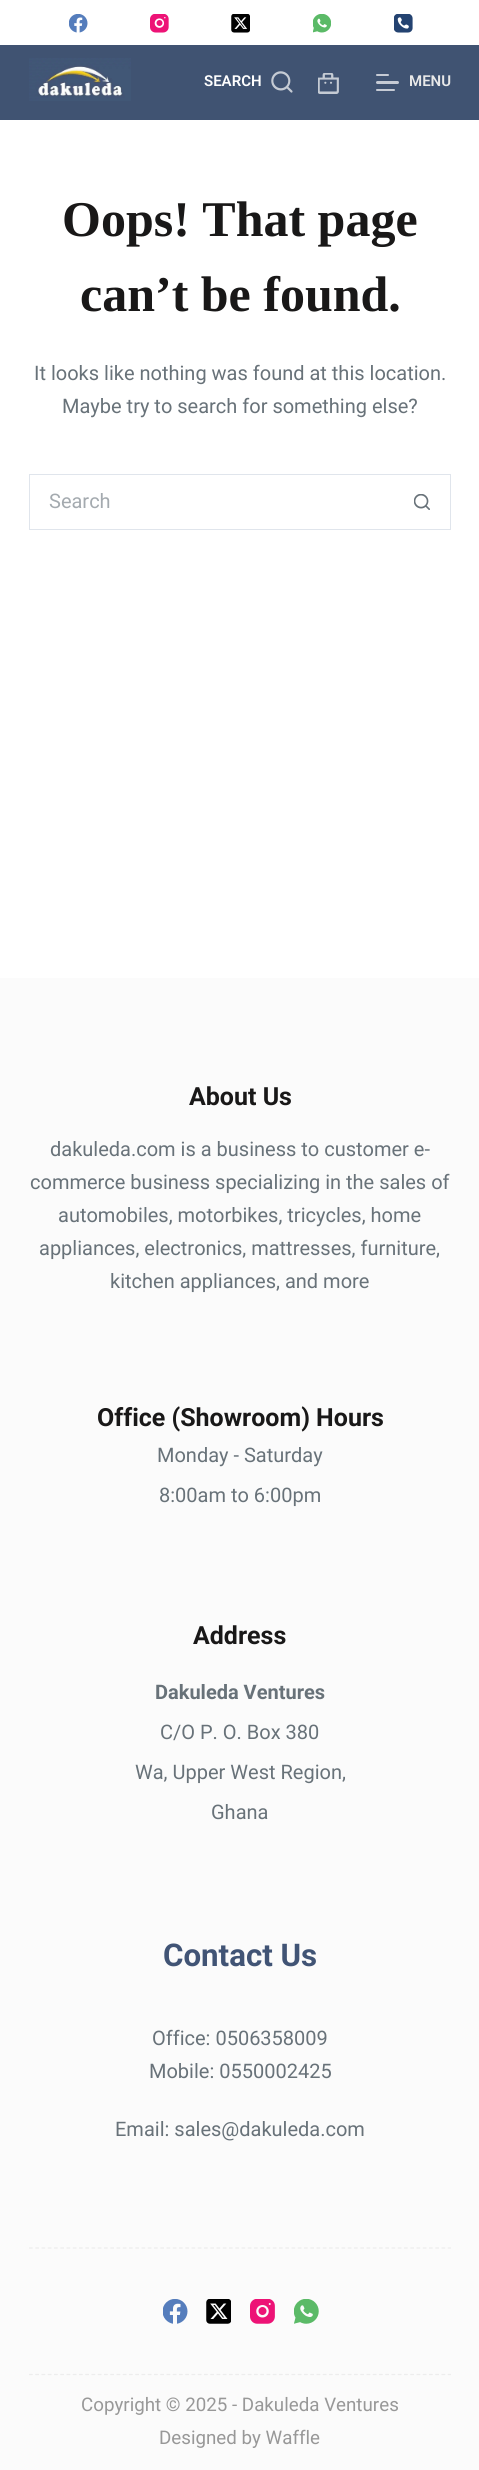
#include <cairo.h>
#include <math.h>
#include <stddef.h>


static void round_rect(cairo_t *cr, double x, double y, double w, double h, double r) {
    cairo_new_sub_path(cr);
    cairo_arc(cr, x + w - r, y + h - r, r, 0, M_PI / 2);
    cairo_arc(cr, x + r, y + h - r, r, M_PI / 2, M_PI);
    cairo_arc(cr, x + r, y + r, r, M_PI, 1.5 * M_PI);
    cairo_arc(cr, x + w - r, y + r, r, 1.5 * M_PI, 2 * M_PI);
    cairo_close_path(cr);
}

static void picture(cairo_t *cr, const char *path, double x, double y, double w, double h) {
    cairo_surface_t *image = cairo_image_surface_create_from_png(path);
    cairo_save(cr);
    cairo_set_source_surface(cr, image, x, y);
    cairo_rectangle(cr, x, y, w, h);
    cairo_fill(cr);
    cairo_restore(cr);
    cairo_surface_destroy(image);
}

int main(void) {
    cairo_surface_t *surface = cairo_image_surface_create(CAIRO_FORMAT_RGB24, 479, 2470);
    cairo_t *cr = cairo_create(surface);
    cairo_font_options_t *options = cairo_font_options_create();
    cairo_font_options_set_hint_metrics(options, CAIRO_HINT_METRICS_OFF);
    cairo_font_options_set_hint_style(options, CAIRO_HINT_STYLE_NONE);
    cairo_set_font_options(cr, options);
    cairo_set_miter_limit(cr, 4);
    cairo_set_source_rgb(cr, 1, 1, 1);
    cairo_paint(cr);
    picture(cr, "img1.png", 69, 14, 19, 19);
    picture(cr, "img2.png", 150, 14, 19, 19);
    picture(cr, "img3.png", 231, 14, 19, 19);
    picture(cr, "img4.png", 313, 14, 18, 19);
    picture(cr, "img5.png", 394, 14, 19, 19);
    cairo_set_source_rgb(cr, 0.251, 0.325, 0.447);
    cairo_rectangle(cr, 0, 45, 479, 75);
    cairo_fill(cr);
    picture(cr, "img6.png", 29, 58, 102, 43);
    cairo_select_font_face(cr, "Roboto SemiBold", CAIRO_FONT_SLANT_NORMAL, CAIRO_FONT_WEIGHT_NORMAL);
    cairo_set_font_size(cr, 15);
    cairo_set_source_rgb(cr, 1, 1, 1);
    cairo_move_to(cr, 204, 86);
    cairo_show_text(cr, "SEARCH");
    picture(cr, "img7.png", 271, 71, 22, 22);
    picture(cr, "img8.png", 318, 73, 21, 21);
    cairo_set_source_rgb(cr, 0.776, 0.796, 0.835);
    round_rect(cr, 376, 74, 13, 2, 1);
    cairo_fill(cr);
    round_rect(cr, 376, 81, 23, 3, 1.5);
    cairo_fill(cr);
    round_rect(cr, 376, 89, 19, 2, 1);
    cairo_fill(cr);
    cairo_set_source_rgb(cr, 0.914, 0.914, 0.914);
    cairo_move_to(cr, 409, 86);
    cairo_show_text(cr, "MENU");
    cairo_select_font_face(cr, "Liberation Serif", CAIRO_FONT_SLANT_NORMAL, CAIRO_FONT_WEIGHT_BOLD);
    cairo_set_font_size(cr, 50);
    cairo_set_source_rgb(cr, 0.098, 0.094, 0.094);
    cairo_move_to(cr, 62, 236);
    cairo_show_text(cr, "Oops! That page");
    cairo_move_to(cr, 80, 311);
    cairo_show_text(cr, "can’t be found.");
    cairo_select_font_face(cr, "Roboto", CAIRO_FONT_SLANT_NORMAL, CAIRO_FONT_WEIGHT_NORMAL);
    cairo_set_font_size(cr, 20);
    cairo_set_source_rgb(cr, 0.408, 0.447, 0.475);
    cairo_move_to(cr, 34, 380);
    cairo_show_text(cr, "It looks like nothing was found at this location.");
    cairo_move_to(cr, 62, 413);
    cairo_show_text(cr, "Maybe try to search for something else?");
    cairo_set_source_rgb(cr, 0.878, 0.898, 0.922);
    cairo_rectangle(cr, 29, 474, 422, 1);
    cairo_fill(cr);
    cairo_rectangle(cr, 29, 529, 366, 1);
    cairo_fill(cr);
    cairo_rectangle(cr, 29, 474, 1, 56);
    cairo_fill(cr);
    cairo_set_source_rgb(cr, 0.643, 0.667, 0.686);
    cairo_move_to(cr, 49, 508);
    cairo_show_text(cr, "Search");
    cairo_set_source_rgb(cr, 0.878, 0.898, 0.922);
    cairo_rectangle(cr, 450, 474, 1, 56);
    cairo_fill(cr);
    cairo_rectangle(cr, 395, 529, 56, 1);
    cairo_fill(cr);
    picture(cr, "img9.png", 414, 494, 16, 16);
    cairo_set_source_rgb(cr, 0.984, 0.984, 0.984);
    cairo_rectangle(cr, 0, 978, 479, 1492);
    cairo_fill(cr);
    cairo_select_font_face(cr, "Roboto", CAIRO_FONT_SLANT_NORMAL, CAIRO_FONT_WEIGHT_BOLD);
    cairo_set_font_size(cr, 25);
    cairo_set_source_rgb(cr, 0.098, 0.094, 0.094);
    cairo_move_to(cr, 189, 1105);
    cairo_show_text(cr, "About Us");
    cairo_select_font_face(cr, "Roboto", CAIRO_FONT_SLANT_NORMAL, CAIRO_FONT_WEIGHT_NORMAL);
    cairo_set_font_size(cr, 20);
    cairo_set_source_rgb(cr, 0.408, 0.447, 0.475);
    cairo_move_to(cr, 50, 1156);
    cairo_show_text(cr, "dakuleda.com is a business to customer e-");
    cairo_move_to(cr, 30, 1189);
    cairo_show_text(cr, "commerce business specializing in the sales of");
    cairo_move_to(cr, 58, 1222);
    cairo_show_text(cr, "automobiles, motorbikes, tricycles, home");
    cairo_move_to(cr, 39, 1255);
    cairo_show_text(cr, "appliances, electronics, mattresses, furniture,");
    cairo_move_to(cr, 110, 1288);
    cairo_show_text(cr, "kitchen appliances, and more");
    cairo_select_font_face(cr, "Roboto", CAIRO_FONT_SLANT_NORMAL, CAIRO_FONT_WEIGHT_BOLD);
    cairo_set_font_size(cr, 25);
    cairo_set_source_rgb(cr, 0.098, 0.094, 0.094);
    cairo_move_to(cr, 97, 1426);
    cairo_show_text(cr, "Office (Showroom) Hours");
    cairo_select_font_face(cr, "Roboto", CAIRO_FONT_SLANT_NORMAL, CAIRO_FONT_WEIGHT_NORMAL);
    cairo_set_font_size(cr, 20);
    cairo_set_source_rgb(cr, 0.408, 0.447, 0.475);
    cairo_move_to(cr, 157, 1462);
    cairo_show_text(cr, "Monday - Saturday");
    cairo_move_to(cr, 159, 1502);
    cairo_show_text(cr, "8:00am to 6:00pm");
    cairo_select_font_face(cr, "Roboto", CAIRO_FONT_SLANT_NORMAL, CAIRO_FONT_WEIGHT_BOLD);
    cairo_set_font_size(cr, 25);
    cairo_set_source_rgb(cr, 0.098, 0.094, 0.094);
    cairo_move_to(cr, 193, 1644);
    cairo_show_text(cr, "Address");
    cairo_set_font_size(cr, 20);
    cairo_set_source_rgb(cr, 0.408, 0.447, 0.475);
    cairo_move_to(cr, 155, 1699);
    cairo_show_text(cr, "Dakuleda Ventures");
    cairo_select_font_face(cr, "Roboto", CAIRO_FONT_SLANT_NORMAL, CAIRO_FONT_WEIGHT_NORMAL);
    cairo_move_to(cr, 160, 1739);
    cairo_show_text(cr, "C/O P. O. Box 380");
    cairo_move_to(cr, 135, 1779);
    cairo_show_text(cr, "Wa, Upper West Region,");
    cairo_move_to(cr, 211, 1819);
    cairo_show_text(cr, "Ghana");
    cairo_select_font_face(cr, "Roboto", CAIRO_FONT_SLANT_NORMAL, CAIRO_FONT_WEIGHT_BOLD);
    cairo_set_font_size(cr, 31.25);
    cairo_set_source_rgb(cr, 0.255, 0.329, 0.459);
    cairo_move_to(cr, 163, 1966);
    cairo_show_text(cr, "Contact Us");
    cairo_select_font_face(cr, "Roboto", CAIRO_FONT_SLANT_NORMAL, CAIRO_FONT_WEIGHT_NORMAL);
    cairo_set_font_size(cr, 20);
    cairo_set_source_rgb(cr, 0.408, 0.447, 0.475);
    cairo_move_to(cr, 152, 2045);
    cairo_show_text(cr, "Office: 0506358009");
    cairo_move_to(cr, 149, 2078);
    cairo_show_text(cr, "Mobile: 0550002425");
    cairo_move_to(cr, 115, 2136);
    cairo_show_text(cr, "Email: sales@dakuleda.com");
    cairo_new_path(cr);
    cairo_move_to(cr, 29, 2248);
    cairo_line_to(cr, 451, 2248);
    cairo_set_source_rgb(cr, 0.929, 0.929, 0.929);
    cairo_set_line_width(cr, 1.2);
    cairo_set_dash(cr, (double[]){3.75, 2.5}, 2, 0);
    cairo_stroke(cr);
    cairo_new_path(cr);
    cairo_move_to(cr, 29, 2374.5);
    cairo_line_to(cr, 451, 2374.5);
    cairo_stroke(cr);
    picture(cr, "img10.png", 163, 2299, 25, 25);
    picture(cr, "img11.png", 206, 2299, 25, 25);
    picture(cr, "img12.png", 250, 2299, 25, 25);
    picture(cr, "img13.png", 294, 2299, 25, 25);
    cairo_set_font_size(cr, 18.75);
    cairo_set_source_rgb(cr, 0.596, 0.596, 0.596);
    cairo_move_to(cr, 81, 2411);
    cairo_show_text(cr, "Copyright © 2025 - Dakuleda Ventures");
    cairo_move_to(cr, 159, 2444);
    cairo_show_text(cr, "Designed by Waffle");
    cairo_surface_write_to_png(surface, "page.png");
    cairo_font_options_destroy(options);
    cairo_destroy(cr);
    cairo_surface_destroy(surface);
    return 0;
}
